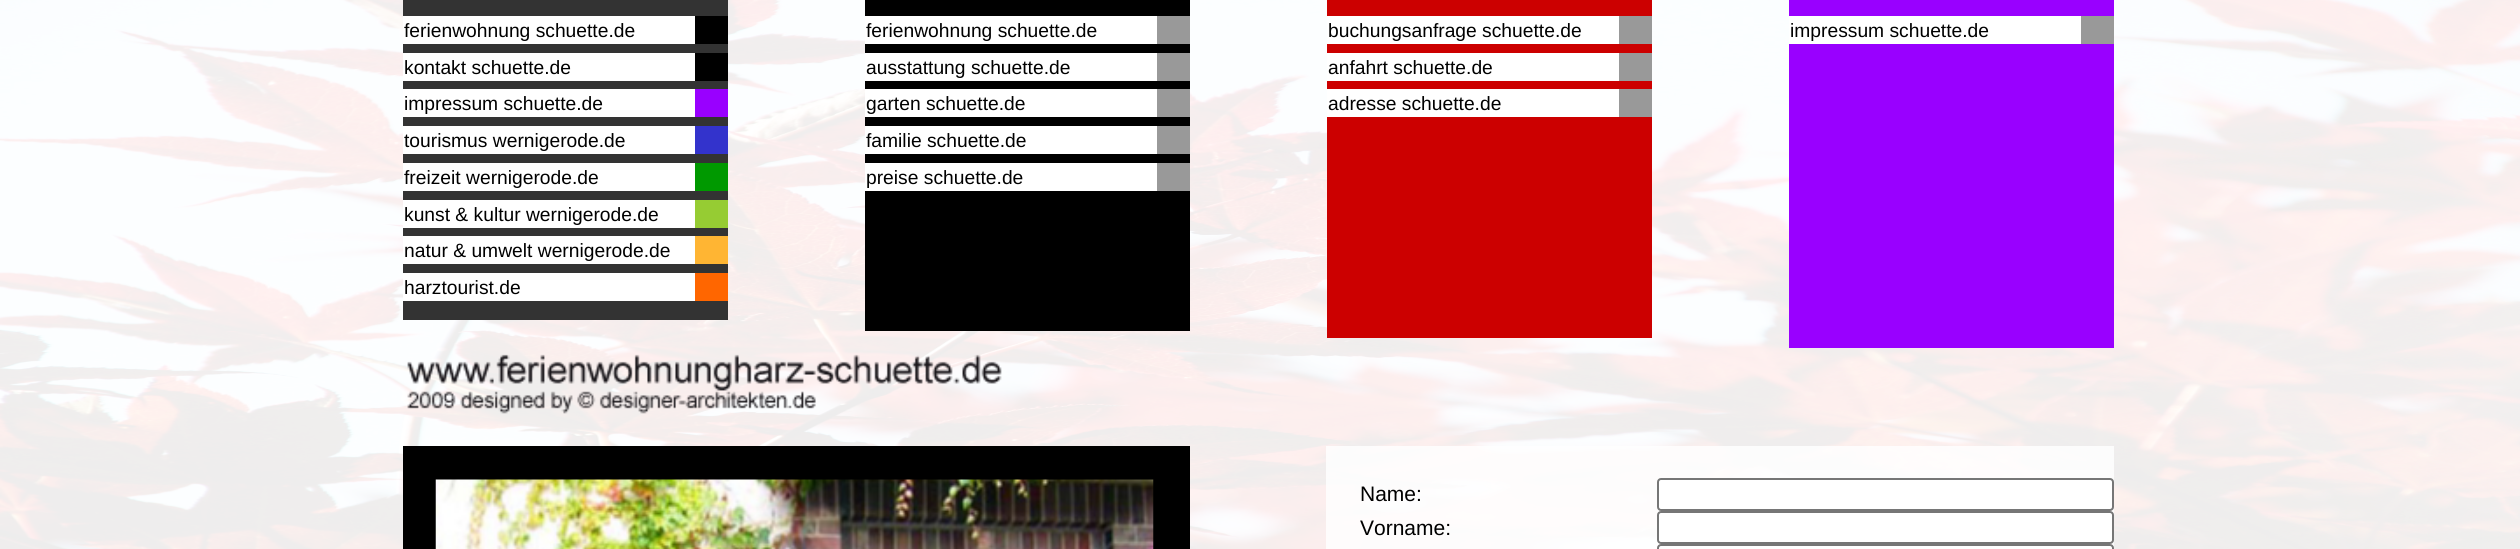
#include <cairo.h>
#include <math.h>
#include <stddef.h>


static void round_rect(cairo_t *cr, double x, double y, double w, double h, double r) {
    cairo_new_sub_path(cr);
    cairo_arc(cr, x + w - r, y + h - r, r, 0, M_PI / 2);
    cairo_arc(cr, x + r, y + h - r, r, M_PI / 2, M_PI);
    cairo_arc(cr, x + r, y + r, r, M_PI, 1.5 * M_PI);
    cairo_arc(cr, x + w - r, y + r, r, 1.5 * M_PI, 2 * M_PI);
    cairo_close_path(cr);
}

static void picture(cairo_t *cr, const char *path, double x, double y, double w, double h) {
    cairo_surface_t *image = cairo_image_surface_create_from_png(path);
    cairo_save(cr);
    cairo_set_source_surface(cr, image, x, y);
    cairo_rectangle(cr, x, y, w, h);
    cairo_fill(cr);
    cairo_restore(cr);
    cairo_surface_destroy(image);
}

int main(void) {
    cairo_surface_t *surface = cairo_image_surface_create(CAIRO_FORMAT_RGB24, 2520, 549);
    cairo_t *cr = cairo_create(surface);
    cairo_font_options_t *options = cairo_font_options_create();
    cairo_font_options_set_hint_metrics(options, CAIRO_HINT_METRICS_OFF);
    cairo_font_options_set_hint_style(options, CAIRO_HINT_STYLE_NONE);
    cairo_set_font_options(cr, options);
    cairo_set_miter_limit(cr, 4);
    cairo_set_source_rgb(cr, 1, 1, 1);
    cairo_paint(cr);
    picture(cr, "img1.png", 0, 0, 2520, 549);
    cairo_set_source_rgb(cr, 1, 1, 1);
    cairo_rectangle(cr, 403, 16, 292, 285);
    cairo_fill(cr);
    cairo_set_source_rgb(cr, 0.2, 0.2, 0.2);
    cairo_rectangle(cr, 403, 0, 325, 16);
    cairo_fill(cr);
    cairo_set_source_rgb(cr, 0, 0, 0);
    cairo_rectangle(cr, 695, 16, 33, 28);
    cairo_fill(cr);
    cairo_select_font_face(cr, "Liberation Sans", CAIRO_FONT_SLANT_NORMAL, CAIRO_FONT_WEIGHT_NORMAL);
    cairo_set_font_size(cr, 19.25);
    cairo_move_to(cr, 404, 37);
    cairo_show_text(cr, "ferienwohnung schuette.de");
    cairo_set_source_rgb(cr, 0.2, 0.2, 0.2);
    cairo_rectangle(cr, 403, 44, 325, 9);
    cairo_fill(cr);
    cairo_set_source_rgb(cr, 0, 0, 0);
    cairo_rectangle(cr, 695, 53, 33, 28);
    cairo_fill(cr);
    cairo_move_to(cr, 404, 74);
    cairo_show_text(cr, "kontakt schuette.de");
    cairo_set_source_rgb(cr, 0.2, 0.2, 0.2);
    cairo_rectangle(cr, 403, 81, 325, 8);
    cairo_fill(cr);
    cairo_set_source_rgb(cr, 0.6, 0, 1);
    cairo_rectangle(cr, 695, 89, 33, 28);
    cairo_fill(cr);
    cairo_set_source_rgb(cr, 0, 0, 0);
    cairo_move_to(cr, 404, 110);
    cairo_show_text(cr, "impressum schuette.de");
    cairo_set_source_rgb(cr, 0.2, 0.2, 0.2);
    cairo_rectangle(cr, 403, 117, 325, 9);
    cairo_fill(cr);
    cairo_set_source_rgb(cr, 0.2, 0.2, 0.8);
    cairo_rectangle(cr, 695, 126, 33, 28);
    cairo_fill(cr);
    cairo_set_source_rgb(cr, 0, 0, 0);
    cairo_move_to(cr, 404, 147);
    cairo_show_text(cr, "tourismus wernigerode.de");
    cairo_set_source_rgb(cr, 0.2, 0.2, 0.2);
    cairo_rectangle(cr, 403, 154, 325, 9);
    cairo_fill(cr);
    cairo_set_source_rgb(cr, 0, 0.6, 0);
    cairo_rectangle(cr, 695, 163, 33, 28);
    cairo_fill(cr);
    cairo_set_source_rgb(cr, 0, 0, 0);
    cairo_move_to(cr, 404, 184);
    cairo_show_text(cr, "freizeit wernigerode.de");
    cairo_set_source_rgb(cr, 0.2, 0.2, 0.2);
    cairo_rectangle(cr, 403, 191, 325, 9);
    cairo_fill(cr);
    cairo_set_source_rgb(cr, 0.588, 0.8, 0.2);
    cairo_rectangle(cr, 695, 200, 33, 28);
    cairo_fill(cr);
    cairo_set_source_rgb(cr, 0, 0, 0);
    cairo_move_to(cr, 404, 221);
    cairo_show_text(cr, "kunst & kultur wernigerode.de");
    cairo_set_source_rgb(cr, 0.2, 0.2, 0.2);
    cairo_rectangle(cr, 403, 228, 325, 8);
    cairo_fill(cr);
    cairo_set_source_rgb(cr, 1, 0.71, 0.2);
    cairo_rectangle(cr, 695, 236, 33, 28);
    cairo_fill(cr);
    cairo_set_source_rgb(cr, 0, 0, 0);
    cairo_move_to(cr, 404, 257);
    cairo_show_text(cr, "natur & umwelt wernigerode.de");
    cairo_set_source_rgb(cr, 0.2, 0.2, 0.2);
    cairo_rectangle(cr, 403, 264, 325, 9);
    cairo_fill(cr);
    cairo_rectangle(cr, 403, 301, 325, 19);
    cairo_fill(cr);
    cairo_set_source_rgb(cr, 1, 0.4, 0);
    cairo_rectangle(cr, 695, 273, 33, 28);
    cairo_fill(cr);
    cairo_set_source_rgb(cr, 0, 0, 0);
    cairo_move_to(cr, 404, 294);
    cairo_show_text(cr, "harztourist.de");
    cairo_set_source_rgb(cr, 1, 1, 1);
    cairo_rectangle(cr, 865, 16, 292, 175);
    cairo_fill(cr);
    cairo_set_source_rgb(cr, 0, 0, 0);
    cairo_rectangle(cr, 865, 0, 325, 16);
    cairo_fill(cr);
    cairo_rectangle(cr, 865, 44, 325, 9);
    cairo_fill(cr);
    cairo_set_source_rgb(cr, 0.6, 0.6, 0.6);
    cairo_rectangle(cr, 1157, 16, 33, 28);
    cairo_fill(cr);
    cairo_set_source_rgb(cr, 0, 0, 0);
    cairo_move_to(cr, 866, 37);
    cairo_show_text(cr, "ferienwohnung schuette.de");
    cairo_rectangle(cr, 865, 81, 325, 8);
    cairo_fill(cr);
    cairo_set_source_rgb(cr, 0.6, 0.6, 0.6);
    cairo_rectangle(cr, 1157, 53, 33, 28);
    cairo_fill(cr);
    cairo_set_source_rgb(cr, 0, 0, 0);
    cairo_move_to(cr, 866, 74);
    cairo_show_text(cr, "ausstattung schuette.de");
    cairo_rectangle(cr, 865, 117, 325, 9);
    cairo_fill(cr);
    cairo_set_source_rgb(cr, 0.6, 0.6, 0.6);
    cairo_rectangle(cr, 1157, 89, 33, 28);
    cairo_fill(cr);
    cairo_set_source_rgb(cr, 0, 0, 0);
    cairo_move_to(cr, 866, 110);
    cairo_show_text(cr, "garten schuette.de");
    cairo_rectangle(cr, 865, 154, 325, 9);
    cairo_fill(cr);
    cairo_set_source_rgb(cr, 0.6, 0.6, 0.6);
    cairo_rectangle(cr, 1157, 126, 33, 28);
    cairo_fill(cr);
    cairo_set_source_rgb(cr, 0, 0, 0);
    cairo_move_to(cr, 866, 147);
    cairo_show_text(cr, "familie schuette.de");
    cairo_rectangle(cr, 865, 191, 325, 140);
    cairo_fill(cr);
    cairo_set_source_rgb(cr, 0.6, 0.6, 0.6);
    cairo_rectangle(cr, 1157, 163, 33, 28);
    cairo_fill(cr);
    cairo_set_source_rgb(cr, 0, 0, 0);
    cairo_move_to(cr, 866, 184);
    cairo_show_text(cr, "preise schuette.de");
    cairo_set_source_rgb(cr, 1, 1, 1);
    cairo_rectangle(cr, 1327, 16, 292, 101);
    cairo_fill(cr);
    cairo_set_source_rgb(cr, 0.8, 0, 0);
    cairo_rectangle(cr, 1327, 0, 325, 16);
    cairo_fill(cr);
    cairo_rectangle(cr, 1327, 44, 325, 9);
    cairo_fill(cr);
    cairo_set_source_rgb(cr, 0.6, 0.6, 0.6);
    cairo_rectangle(cr, 1619, 16, 33, 28);
    cairo_fill(cr);
    cairo_set_source_rgb(cr, 0, 0, 0);
    cairo_move_to(cr, 1328, 37);
    cairo_show_text(cr, "buchungsanfrage schuette.de");
    cairo_set_source_rgb(cr, 0.8, 0, 0);
    cairo_rectangle(cr, 1327, 81, 325, 8);
    cairo_fill(cr);
    cairo_set_source_rgb(cr, 0.6, 0.6, 0.6);
    cairo_rectangle(cr, 1619, 53, 33, 28);
    cairo_fill(cr);
    cairo_set_source_rgb(cr, 0, 0, 0);
    cairo_move_to(cr, 1328, 74);
    cairo_show_text(cr, "anfahrt schuette.de");
    cairo_set_source_rgb(cr, 0.8, 0, 0);
    cairo_rectangle(cr, 1327, 117, 325, 221);
    cairo_fill(cr);
    cairo_set_source_rgb(cr, 0.6, 0.6, 0.6);
    cairo_rectangle(cr, 1619, 89, 33, 28);
    cairo_fill(cr);
    cairo_set_source_rgb(cr, 0, 0, 0);
    cairo_move_to(cr, 1328, 110);
    cairo_show_text(cr, "adresse schuette.de");
    cairo_set_source_rgb(cr, 1, 1, 1);
    cairo_rectangle(cr, 1789, 16, 292, 28);
    cairo_fill(cr);
    cairo_set_source_rgb(cr, 0.6, 0, 1);
    cairo_rectangle(cr, 1789, 0, 325, 16);
    cairo_fill(cr);
    cairo_rectangle(cr, 1789, 44, 325, 304);
    cairo_fill(cr);
    cairo_set_source_rgb(cr, 0.6, 0.6, 0.6);
    cairo_rectangle(cr, 2081, 16, 33, 28);
    cairo_fill(cr);
    cairo_set_source_rgb(cr, 0, 0, 0);
    cairo_move_to(cr, 1790, 37);
    cairo_show_text(cr, "impressum schuette.de");
    picture(cr, "img2.png", 407, 354, 595, 60);
    cairo_rectangle(cr, 403, 446, 787, 103);
    cairo_fill(cr);
    picture(cr, "img3.png", 435, 479, 719, 70);
    cairo_set_source_rgba(cr, 1, 1, 1, 0.82);
    cairo_rectangle(cr, 1326, 446, 788, 103);
    cairo_fill(cr);
    cairo_set_font_size(cr, 21);
    cairo_set_source_rgb(cr, 0, 0, 0);
    cairo_move_to(cr, 1360, 501);
    cairo_show_text(cr, "Name:");
    cairo_set_source_rgb(cr, 1, 1, 1);
    round_rect(cr, 1658, 479, 455, 31, 3);
    cairo_fill_preserve(cr);
    cairo_set_source_rgb(cr, 0.463, 0.463, 0.463);
    cairo_stroke(cr);
    cairo_set_source_rgb(cr, 0, 0, 0);
    cairo_move_to(cr, 1360, 535);
    cairo_show_text(cr, "Vorname:");
    cairo_set_source_rgb(cr, 1, 1, 1);
    round_rect(cr, 1658, 512, 455, 31, 3);
    cairo_fill_preserve(cr);
    cairo_set_source_rgb(cr, 0.463, 0.463, 0.463);
    cairo_stroke(cr);
    cairo_set_source_rgb(cr, 1, 1, 1);
    cairo_new_path(cr);
    cairo_move_to(cr, 1661, 544);
    cairo_line_to(cr, 2110, 544);
    cairo_curve_to(cr, 2112, 544, 2114, 546, 2114, 548);
    cairo_line_to(cr, 2114, 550);
    cairo_line_to(cr, 1657, 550);
    cairo_line_to(cr, 1657, 548);
    cairo_curve_to(cr, 1657, 546, 1659, 544, 1661, 544);
    cairo_close_path(cr);
    cairo_fill(cr);
    round_rect(cr, 1658, 545, 455, 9, 3);
    cairo_set_source_rgb(cr, 0.463, 0.463, 0.463);
    cairo_stroke(cr);
    cairo_surface_write_to_png(surface, "page.png");
    cairo_font_options_destroy(options);
    cairo_destroy(cr);
    cairo_surface_destroy(surface);
    return 0;
}
